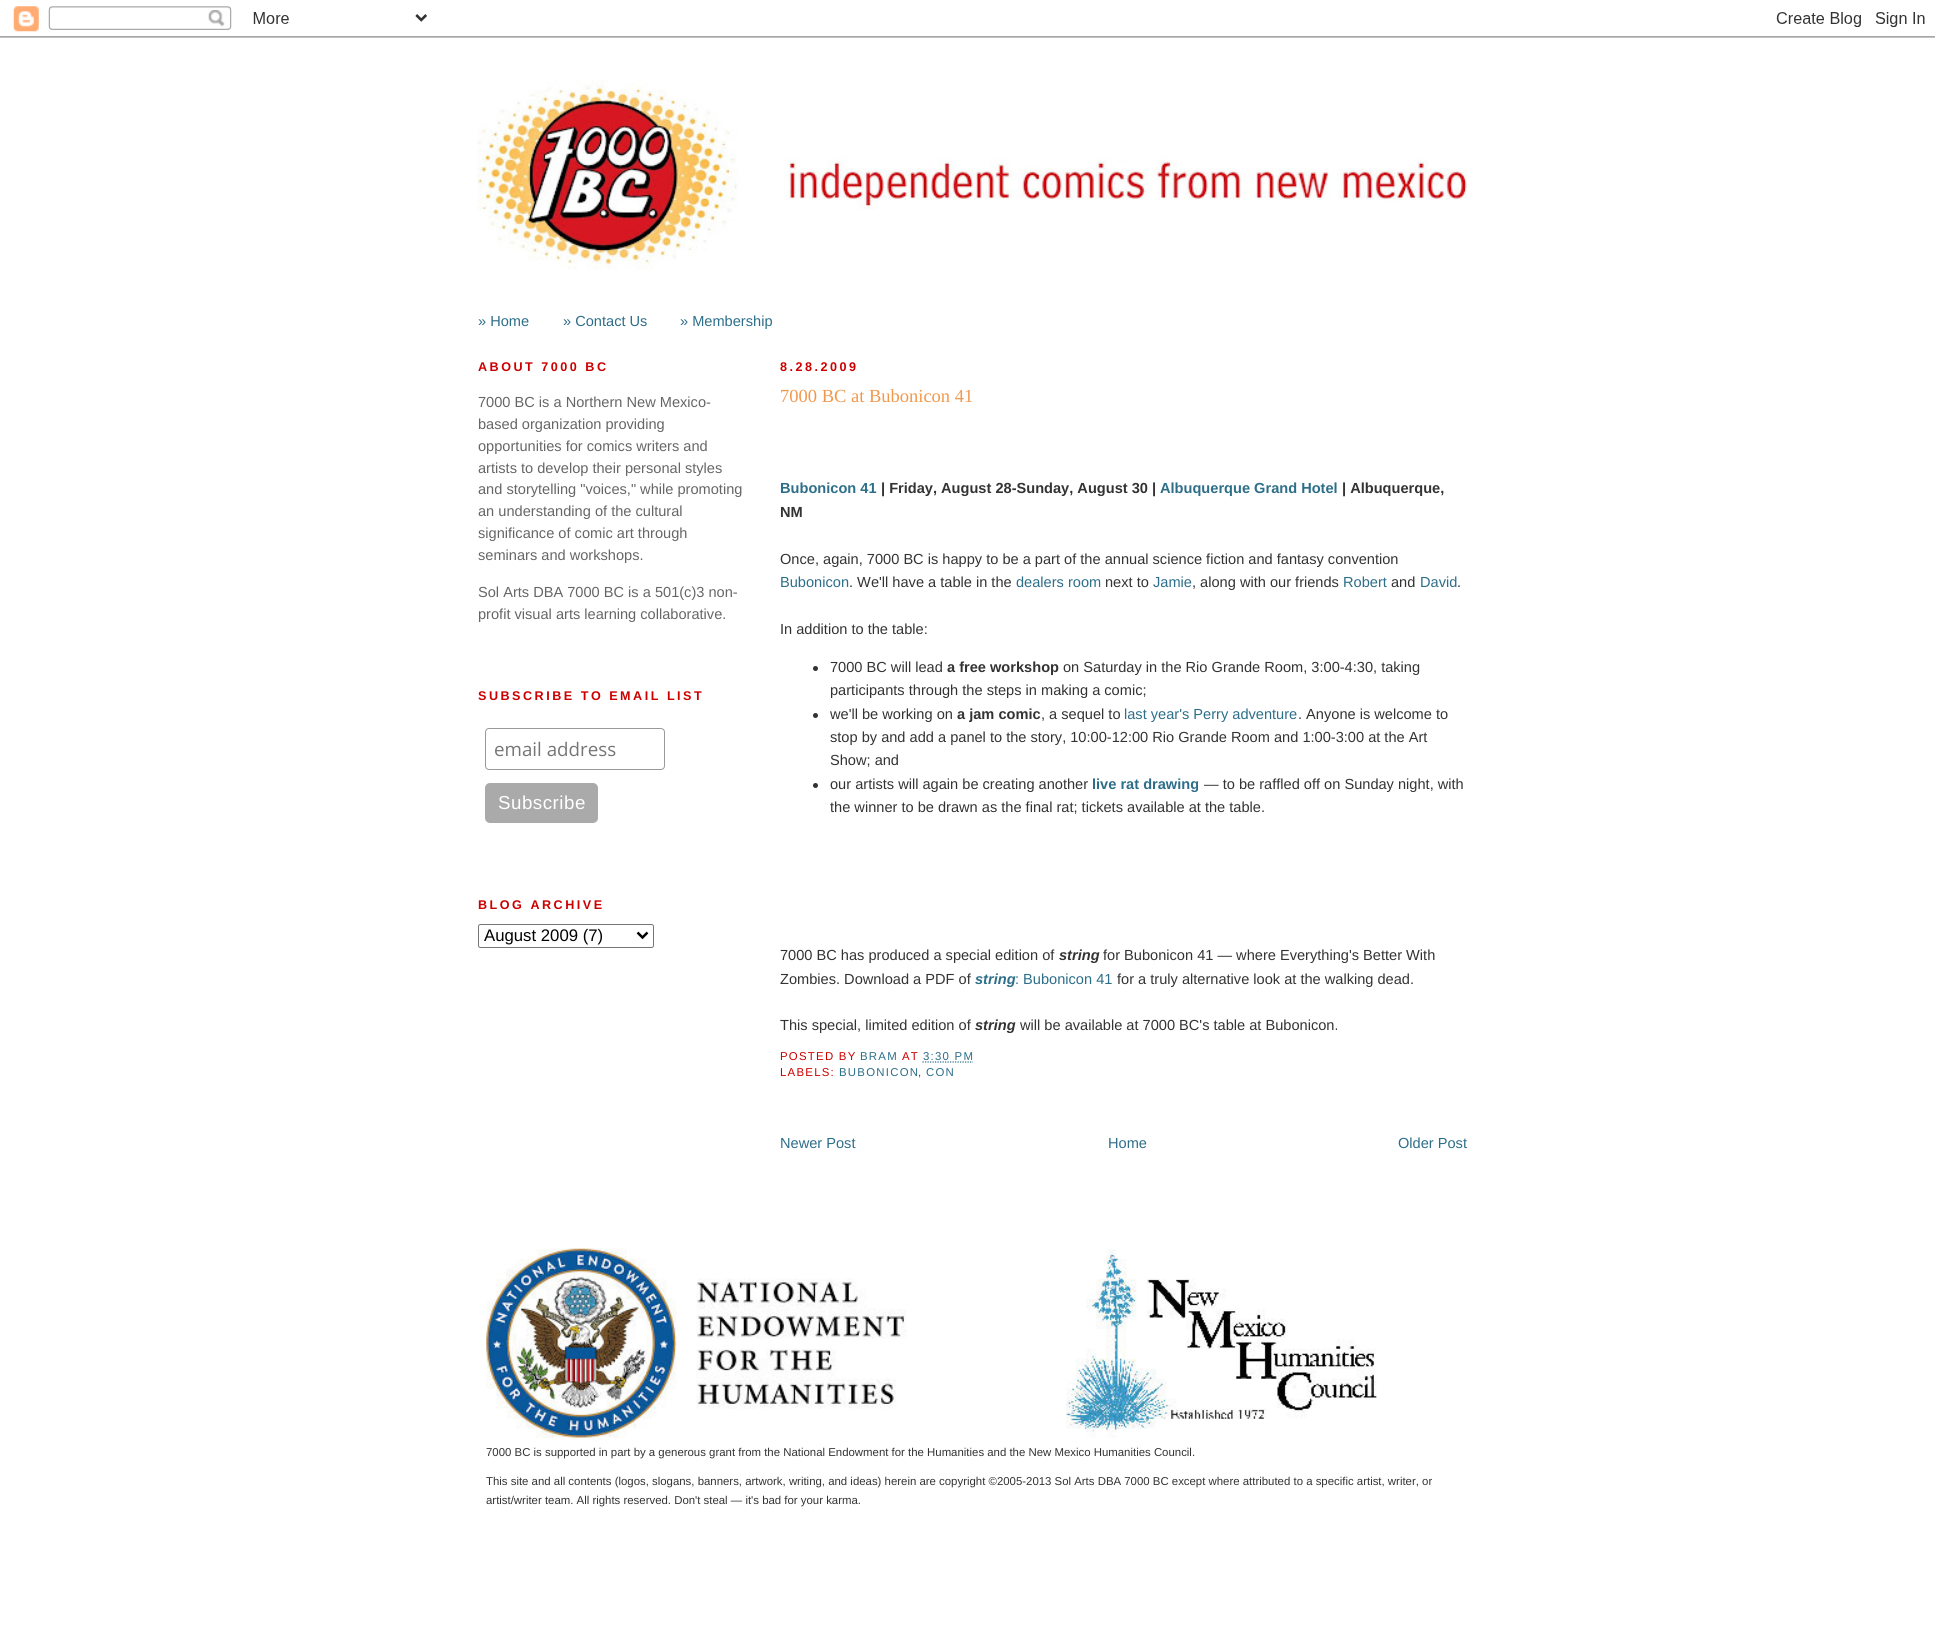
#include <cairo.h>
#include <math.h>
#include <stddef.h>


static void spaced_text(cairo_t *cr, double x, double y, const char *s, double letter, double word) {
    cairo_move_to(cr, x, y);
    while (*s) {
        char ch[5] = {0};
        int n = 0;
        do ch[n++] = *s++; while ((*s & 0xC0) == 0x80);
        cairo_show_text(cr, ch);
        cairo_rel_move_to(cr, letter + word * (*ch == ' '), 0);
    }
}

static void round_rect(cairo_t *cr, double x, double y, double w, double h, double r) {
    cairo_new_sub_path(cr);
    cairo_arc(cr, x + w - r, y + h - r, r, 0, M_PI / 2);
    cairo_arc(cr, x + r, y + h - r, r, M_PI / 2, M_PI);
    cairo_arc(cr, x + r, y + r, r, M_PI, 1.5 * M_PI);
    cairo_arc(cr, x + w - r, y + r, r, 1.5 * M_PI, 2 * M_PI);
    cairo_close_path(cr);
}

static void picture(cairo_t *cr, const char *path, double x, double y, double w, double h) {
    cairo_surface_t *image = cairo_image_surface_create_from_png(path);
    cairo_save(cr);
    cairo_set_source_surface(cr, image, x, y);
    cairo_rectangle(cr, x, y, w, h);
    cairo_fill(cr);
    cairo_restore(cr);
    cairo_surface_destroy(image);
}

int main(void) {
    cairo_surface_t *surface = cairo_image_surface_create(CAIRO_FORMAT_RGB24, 1935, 1652);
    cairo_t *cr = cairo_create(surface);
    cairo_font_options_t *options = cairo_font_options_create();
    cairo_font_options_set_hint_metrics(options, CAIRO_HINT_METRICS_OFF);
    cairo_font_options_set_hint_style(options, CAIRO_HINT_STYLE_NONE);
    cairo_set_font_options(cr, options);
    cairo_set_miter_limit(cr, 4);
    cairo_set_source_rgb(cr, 1, 1, 1);
    cairo_paint(cr);
    picture(cr, "img1.png", 0, 6, 1935, 32);
    picture(cr, "img2.png", 477, 80, 991, 190);
    cairo_select_font_face(cr, "Liberation Sans", CAIRO_FONT_SLANT_NORMAL, CAIRO_FONT_WEIGHT_NORMAL);
    cairo_set_font_size(cr, 14.6);
    cairo_set_source_rgb(cr, 0.176, 0.431, 0.537);
    cairo_move_to(cr, 478, 326);
    cairo_show_text(cr, "» Home");
    cairo_move_to(cr, 563, 326);
    cairo_show_text(cr, "» Contact Us");
    cairo_move_to(cr, 680, 326);
    cairo_show_text(cr, "» Membership");
    cairo_select_font_face(cr, "Liberation Sans", CAIRO_FONT_SLANT_NORMAL, CAIRO_FONT_WEIGHT_BOLD);
    cairo_set_font_size(cr, 12.6);
    cairo_set_source_rgb(cr, 0.8, 0, 0);
    spaced_text(cr, 478, 371, "ABOUT 7000 BC", 2.5, 0);
    cairo_select_font_face(cr, "Liberation Sans", CAIRO_FONT_SLANT_NORMAL, CAIRO_FONT_WEIGHT_NORMAL);
    cairo_set_font_size(cr, 14.6);
    cairo_set_source_rgb(cr, 0.4, 0.4, 0.4);
    cairo_move_to(cr, 478, 407);
    cairo_show_text(cr, "7000 BC is a Northern New Mexico-");
    cairo_move_to(cr, 478, 429);
    cairo_show_text(cr, "based organization providing");
    cairo_move_to(cr, 478, 451);
    cairo_show_text(cr, "opportunities for comics writers and");
    cairo_move_to(cr, 478, 473);
    cairo_show_text(cr, "artists to develop their personal styles");
    cairo_move_to(cr, 478, 494);
    cairo_show_text(cr, "and storytelling \"voices,\" while promoting");
    cairo_move_to(cr, 478, 516);
    cairo_show_text(cr, "an understanding of the cultural");
    cairo_move_to(cr, 478, 538);
    cairo_show_text(cr, "significance of comic art through");
    cairo_move_to(cr, 478, 560);
    cairo_show_text(cr, "seminars and workshops.");
    cairo_move_to(cr, 478, 597);
    cairo_show_text(cr, "Sol Arts DBA 7000 BC is a 501(c)3 non-");
    cairo_move_to(cr, 478, 619);
    cairo_show_text(cr, "profit visual arts learning collaborative.");
    cairo_select_font_face(cr, "Liberation Sans", CAIRO_FONT_SLANT_NORMAL, CAIRO_FONT_WEIGHT_BOLD);
    cairo_set_font_size(cr, 12.6);
    cairo_set_source_rgb(cr, 0.8, 0, 0);
    spaced_text(cr, 478, 700, "SUBSCRIBE TO EMAIL LIST", 2.5, 0);
    round_rect(cr, 485.5, 728.5, 179, 41, 3.5);
    cairo_set_source_rgb(cr, 0.6, 0.6, 0.6);
    cairo_set_line_width(cr, 1);
    cairo_stroke(cr);
    cairo_select_font_face(cr, "Open Sans", CAIRO_FONT_SLANT_NORMAL, CAIRO_FONT_WEIGHT_NORMAL);
    cairo_set_font_size(cr, 18.75);
    cairo_set_source_rgb(cr, 0.459, 0.459, 0.459);
    cairo_move_to(cr, 494, 756);
    cairo_show_text(cr, "email address");
    cairo_set_source_rgb(cr, 0.667, 0.667, 0.667);
    round_rect(cr, 485, 783, 113, 40, 5);
    cairo_fill(cr);
    cairo_select_font_face(cr, "Liberation Sans", CAIRO_FONT_SLANT_NORMAL, CAIRO_FONT_WEIGHT_NORMAL);
    cairo_set_source_rgb(cr, 1, 1, 1);
    spaced_text(cr, 498, 809, "Subscribe", 0.5, 0);
    cairo_select_font_face(cr, "Liberation Sans", CAIRO_FONT_SLANT_NORMAL, CAIRO_FONT_WEIGHT_BOLD);
    cairo_set_font_size(cr, 12.6);
    cairo_set_source_rgb(cr, 0.8, 0, 0);
    spaced_text(cr, 478, 909, "BLOG ARCHIVE", 2.5, 0);
    round_rect(cr, 478.5, 924.5, 175, 23, 2);
    cairo_set_source_rgb(cr, 0.463, 0.463, 0.463);
    cairo_stroke(cr);
    cairo_new_path(cr);
    cairo_move_to(cr, 637.5, 932.5);
    cairo_line_to(cr, 642.5, 937.5);
    cairo_line_to(cr, 647.5, 932.5);
    cairo_set_source_rgb(cr, 0, 0, 0);
    cairo_set_line_width(cr, 2.5);
    cairo_stroke(cr);
    cairo_select_font_face(cr, "Liberation Sans", CAIRO_FONT_SLANT_NORMAL, CAIRO_FONT_WEIGHT_NORMAL);
    cairo_set_font_size(cr, 16.75);
    cairo_move_to(cr, 484, 941);
    cairo_show_text(cr, "August 2009 (7)");
    cairo_select_font_face(cr, "Liberation Sans", CAIRO_FONT_SLANT_NORMAL, CAIRO_FONT_WEIGHT_BOLD);
    cairo_set_font_size(cr, 12.6);
    cairo_set_source_rgb(cr, 0.8, 0, 0);
    spaced_text(cr, 780, 371, "8.28.2009", 2.5, 0);
    cairo_select_font_face(cr, "Liberation Serif", CAIRO_FONT_SLANT_NORMAL, CAIRO_FONT_WEIGHT_NORMAL);
    cairo_set_font_size(cr, 18.5);
    cairo_set_source_rgb(cr, 0.949, 0.596, 0.298);
    cairo_move_to(cr, 780, 402);
    cairo_show_text(cr, "7000 BC at Bubonicon 41");
    cairo_select_font_face(cr, "Liberation Sans", CAIRO_FONT_SLANT_NORMAL, CAIRO_FONT_WEIGHT_BOLD);
    cairo_set_font_size(cr, 14.6);
    cairo_set_source_rgb(cr, 0.176, 0.431, 0.537);
    cairo_move_to(cr, 780, 493);
    cairo_show_text(cr, "Bubonicon 41");
    cairo_set_source_rgb(cr, 0.2, 0.2, 0.2);
    cairo_move_to(cr, 881, 493);
    cairo_show_text(cr, "| Friday, August 28-Sunday, August 30 |");
    cairo_set_source_rgb(cr, 0.176, 0.431, 0.537);
    cairo_move_to(cr, 1160, 493);
    cairo_show_text(cr, "Albuquerque Grand Hotel");
    cairo_set_source_rgb(cr, 0.2, 0.2, 0.2);
    cairo_move_to(cr, 1342, 493);
    cairo_show_text(cr, "| Albuquerque,");
    cairo_move_to(cr, 780, 517);
    cairo_show_text(cr, "NM");
    cairo_select_font_face(cr, "Liberation Sans", CAIRO_FONT_SLANT_NORMAL, CAIRO_FONT_WEIGHT_NORMAL);
    cairo_move_to(cr, 780, 564);
    cairo_show_text(cr, "Once, again, 7000 BC is happy to be a part of the annual science fiction and fantasy convention");
    cairo_set_source_rgb(cr, 0.176, 0.431, 0.537);
    cairo_move_to(cr, 780, 587);
    cairo_show_text(cr, "Bubonicon");
    cairo_set_source_rgb(cr, 0.2, 0.2, 0.2);
    cairo_move_to(cr, 849, 587);
    cairo_show_text(cr, ". We'll have a table in the");
    cairo_set_source_rgb(cr, 0.176, 0.431, 0.537);
    cairo_move_to(cr, 1016, 587);
    cairo_show_text(cr, "dealers room");
    cairo_set_source_rgb(cr, 0.2, 0.2, 0.2);
    cairo_move_to(cr, 1105, 587);
    cairo_show_text(cr, "next to");
    cairo_set_source_rgb(cr, 0.176, 0.431, 0.537);
    cairo_move_to(cr, 1153, 587);
    cairo_show_text(cr, "Jamie");
    cairo_set_source_rgb(cr, 0.2, 0.2, 0.2);
    cairo_move_to(cr, 1192, 587);
    cairo_show_text(cr, ", along with our friends");
    cairo_set_source_rgb(cr, 0.176, 0.431, 0.537);
    cairo_move_to(cr, 1343, 587);
    cairo_show_text(cr, "Robert");
    cairo_set_source_rgb(cr, 0.2, 0.2, 0.2);
    cairo_move_to(cr, 1391, 587);
    cairo_show_text(cr, "and");
    cairo_set_source_rgb(cr, 0.176, 0.431, 0.537);
    cairo_move_to(cr, 1420, 587);
    cairo_show_text(cr, "David");
    cairo_set_source_rgb(cr, 0.2, 0.2, 0.2);
    cairo_move_to(cr, 1457, 587);
    cairo_show_text(cr, ".");
    cairo_move_to(cr, 780, 634);
    cairo_show_text(cr, "In addition to the table:");
    cairo_new_path(cr);
    cairo_arc(cr, 815.5, 668.5, 2.5, 0, 2 * M_PI);
    cairo_fill(cr);
    cairo_move_to(cr, 830, 672);
    cairo_show_text(cr, "7000 BC will lead");
    cairo_select_font_face(cr, "Liberation Sans", CAIRO_FONT_SLANT_NORMAL, CAIRO_FONT_WEIGHT_BOLD);
    cairo_move_to(cr, 947, 672);
    cairo_show_text(cr, "a free workshop");
    cairo_select_font_face(cr, "Liberation Sans", CAIRO_FONT_SLANT_NORMAL, CAIRO_FONT_WEIGHT_NORMAL);
    cairo_move_to(cr, 1063, 672);
    cairo_show_text(cr, "on Saturday in the Rio Grande Room, 3:00-4:30, taking");
    cairo_move_to(cr, 830, 695);
    cairo_show_text(cr, "participants through the steps in making a comic;");
    cairo_new_path(cr);
    cairo_arc(cr, 815.5, 715.5, 2.5, 0, 2 * M_PI);
    cairo_fill(cr);
    cairo_move_to(cr, 830, 719);
    cairo_show_text(cr, "we'll be working on");
    cairo_select_font_face(cr, "Liberation Sans", CAIRO_FONT_SLANT_NORMAL, CAIRO_FONT_WEIGHT_BOLD);
    cairo_move_to(cr, 957, 719);
    cairo_show_text(cr, "a jam comic");
    cairo_select_font_face(cr, "Liberation Sans", CAIRO_FONT_SLANT_NORMAL, CAIRO_FONT_WEIGHT_NORMAL);
    cairo_move_to(cr, 1041, 719);
    cairo_show_text(cr, ", a sequel to");
    cairo_set_source_rgb(cr, 0.176, 0.431, 0.537);
    cairo_move_to(cr, 1124, 719);
    cairo_show_text(cr, "last year's Perry adventure");
    cairo_set_source_rgb(cr, 0.2, 0.2, 0.2);
    cairo_move_to(cr, 1298, 719);
    cairo_show_text(cr, ". Anyone is welcome to");
    cairo_move_to(cr, 830, 742);
    cairo_show_text(cr, "stop by and add a panel to the story, 10:00-12:00 Rio Grande Room and 1:00-3:00 at the Art");
    cairo_move_to(cr, 830, 765);
    cairo_show_text(cr, "Show; and");
    cairo_new_path(cr);
    cairo_arc(cr, 815.5, 785.5, 2.5, 0, 2 * M_PI);
    cairo_fill(cr);
    cairo_move_to(cr, 830, 789);
    cairo_show_text(cr, "our artists will again be creating another");
    cairo_select_font_face(cr, "Liberation Sans", CAIRO_FONT_SLANT_NORMAL, CAIRO_FONT_WEIGHT_BOLD);
    cairo_set_source_rgb(cr, 0.176, 0.431, 0.537);
    cairo_move_to(cr, 1092, 789);
    cairo_show_text(cr, "live rat drawing");
    cairo_select_font_face(cr, "Liberation Sans", CAIRO_FONT_SLANT_NORMAL, CAIRO_FONT_WEIGHT_NORMAL);
    cairo_set_source_rgb(cr, 0.2, 0.2, 0.2);
    cairo_move_to(cr, 1204, 789);
    cairo_show_text(cr, "— to be raffled off on Sunday night, with");
    cairo_move_to(cr, 830, 812);
    cairo_show_text(cr, "the winner to be drawn as the final rat; tickets available at the table.");
    cairo_move_to(cr, 780, 960);
    cairo_show_text(cr, "7000 BC has produced a special edition of");
    cairo_select_font_face(cr, "Liberation Sans", CAIRO_FONT_SLANT_ITALIC, CAIRO_FONT_WEIGHT_BOLD);
    cairo_move_to(cr, 1059, 960);
    cairo_show_text(cr, "string");
    cairo_select_font_face(cr, "Liberation Sans", CAIRO_FONT_SLANT_NORMAL, CAIRO_FONT_WEIGHT_NORMAL);
    cairo_move_to(cr, 1103, 960);
    cairo_show_text(cr, "for Bubonicon 41 — where Everything's Better With");
    cairo_move_to(cr, 780, 984);
    cairo_show_text(cr, "Zombies. Download a PDF of");
    cairo_select_font_face(cr, "Liberation Sans", CAIRO_FONT_SLANT_ITALIC, CAIRO_FONT_WEIGHT_BOLD);
    cairo_set_source_rgb(cr, 0.176, 0.431, 0.537);
    cairo_move_to(cr, 975, 984);
    cairo_show_text(cr, "string");
    cairo_select_font_face(cr, "Liberation Sans", CAIRO_FONT_SLANT_NORMAL, CAIRO_FONT_WEIGHT_NORMAL);
    cairo_move_to(cr, 1015, 984);
    cairo_show_text(cr, ": Bubonicon 41");
    cairo_set_source_rgb(cr, 0.2, 0.2, 0.2);
    cairo_move_to(cr, 1117, 984);
    cairo_show_text(cr, "for a truly alternative look at the walking dead.");
    cairo_move_to(cr, 780, 1030);
    cairo_show_text(cr, "This special, limited edition of");
    cairo_select_font_face(cr, "Liberation Sans", CAIRO_FONT_SLANT_ITALIC, CAIRO_FONT_WEIGHT_BOLD);
    cairo_move_to(cr, 975, 1030);
    cairo_show_text(cr, "string");
    cairo_select_font_face(cr, "Liberation Sans", CAIRO_FONT_SLANT_NORMAL, CAIRO_FONT_WEIGHT_NORMAL);
    cairo_move_to(cr, 1020, 1030);
    cairo_show_text(cr, "will be available at 7000 BC's table at Bubonicon.");
    cairo_set_font_size(cr, 11.4);
    cairo_set_source_rgb(cr, 0.8, 0, 0);
    spaced_text(cr, 780, 1060, "POSTED BY", 1.25, 0);
    cairo_set_source_rgb(cr, 0.176, 0.431, 0.537);
    spaced_text(cr, 860, 1060, "BRAM", 1.25, 0);
    cairo_set_source_rgb(cr, 0.8, 0, 0);
    spaced_text(cr, 902, 1060, "AT", 1.25, 0);
    cairo_set_source_rgb(cr, 0.176, 0.431, 0.537);
    spaced_text(cr, 923, 1060, "3:30 PM", 1.25, 0);
    cairo_new_path(cr);
    cairo_move_to(cr, 922.5, 1062);
    cairo_line_to(cr, 973, 1062);
    cairo_set_line_width(cr, 1.2);
    cairo_set_dash(cr, (double[]){1.25, 1.25}, 2, 0);
    cairo_stroke(cr);
    cairo_set_source_rgb(cr, 0.8, 0, 0);
    spaced_text(cr, 780, 1076, "LABELS:", 1.25, 0);
    cairo_set_source_rgb(cr, 0.176, 0.431, 0.537);
    spaced_text(cr, 839, 1076, "BUBONICON", 1.25, 0);
    cairo_set_source_rgb(cr, 0.8, 0, 0);
    spaced_text(cr, 918, 1076, ",", 1.25, 0);
    cairo_set_source_rgb(cr, 0.176, 0.431, 0.537);
    spaced_text(cr, 926, 1076, "CON", 1.25, 0);
    cairo_set_font_size(cr, 14.6);
    cairo_move_to(cr, 780, 1148);
    cairo_show_text(cr, "Newer Post");
    cairo_move_to(cr, 1108, 1148);
    cairo_show_text(cr, "Home");
    cairo_move_to(cr, 1398, 1148);
    cairo_show_text(cr, "Older Post");
    picture(cr, "img3.png", 486, 1248, 891, 190);
    cairo_set_font_size(cr, 11.4);
    cairo_set_source_rgb(cr, 0.2, 0.2, 0.2);
    cairo_move_to(cr, 486, 1456);
    cairo_show_text(cr, "7000 BC is supported in part by a generous grant from the National Endowment for the Humanities and the New Mexico Humanities Council.");
    cairo_move_to(cr, 486, 1485);
    cairo_show_text(cr, "This site and all contents (logos, slogans, banners, artwork, writing, and ideas) herein are copyright ©2005-2013 Sol Arts DBA 7000 BC except where attributed to a specific artist, writer, or");
    cairo_move_to(cr, 486, 1504);
    cairo_show_text(cr, "artist/writer team. All rights reserved. Don't steal — it's bad for your karma.");
    cairo_surface_write_to_png(surface, "page.png");
    cairo_font_options_destroy(options);
    cairo_destroy(cr);
    cairo_surface_destroy(surface);
    return 0;
}
